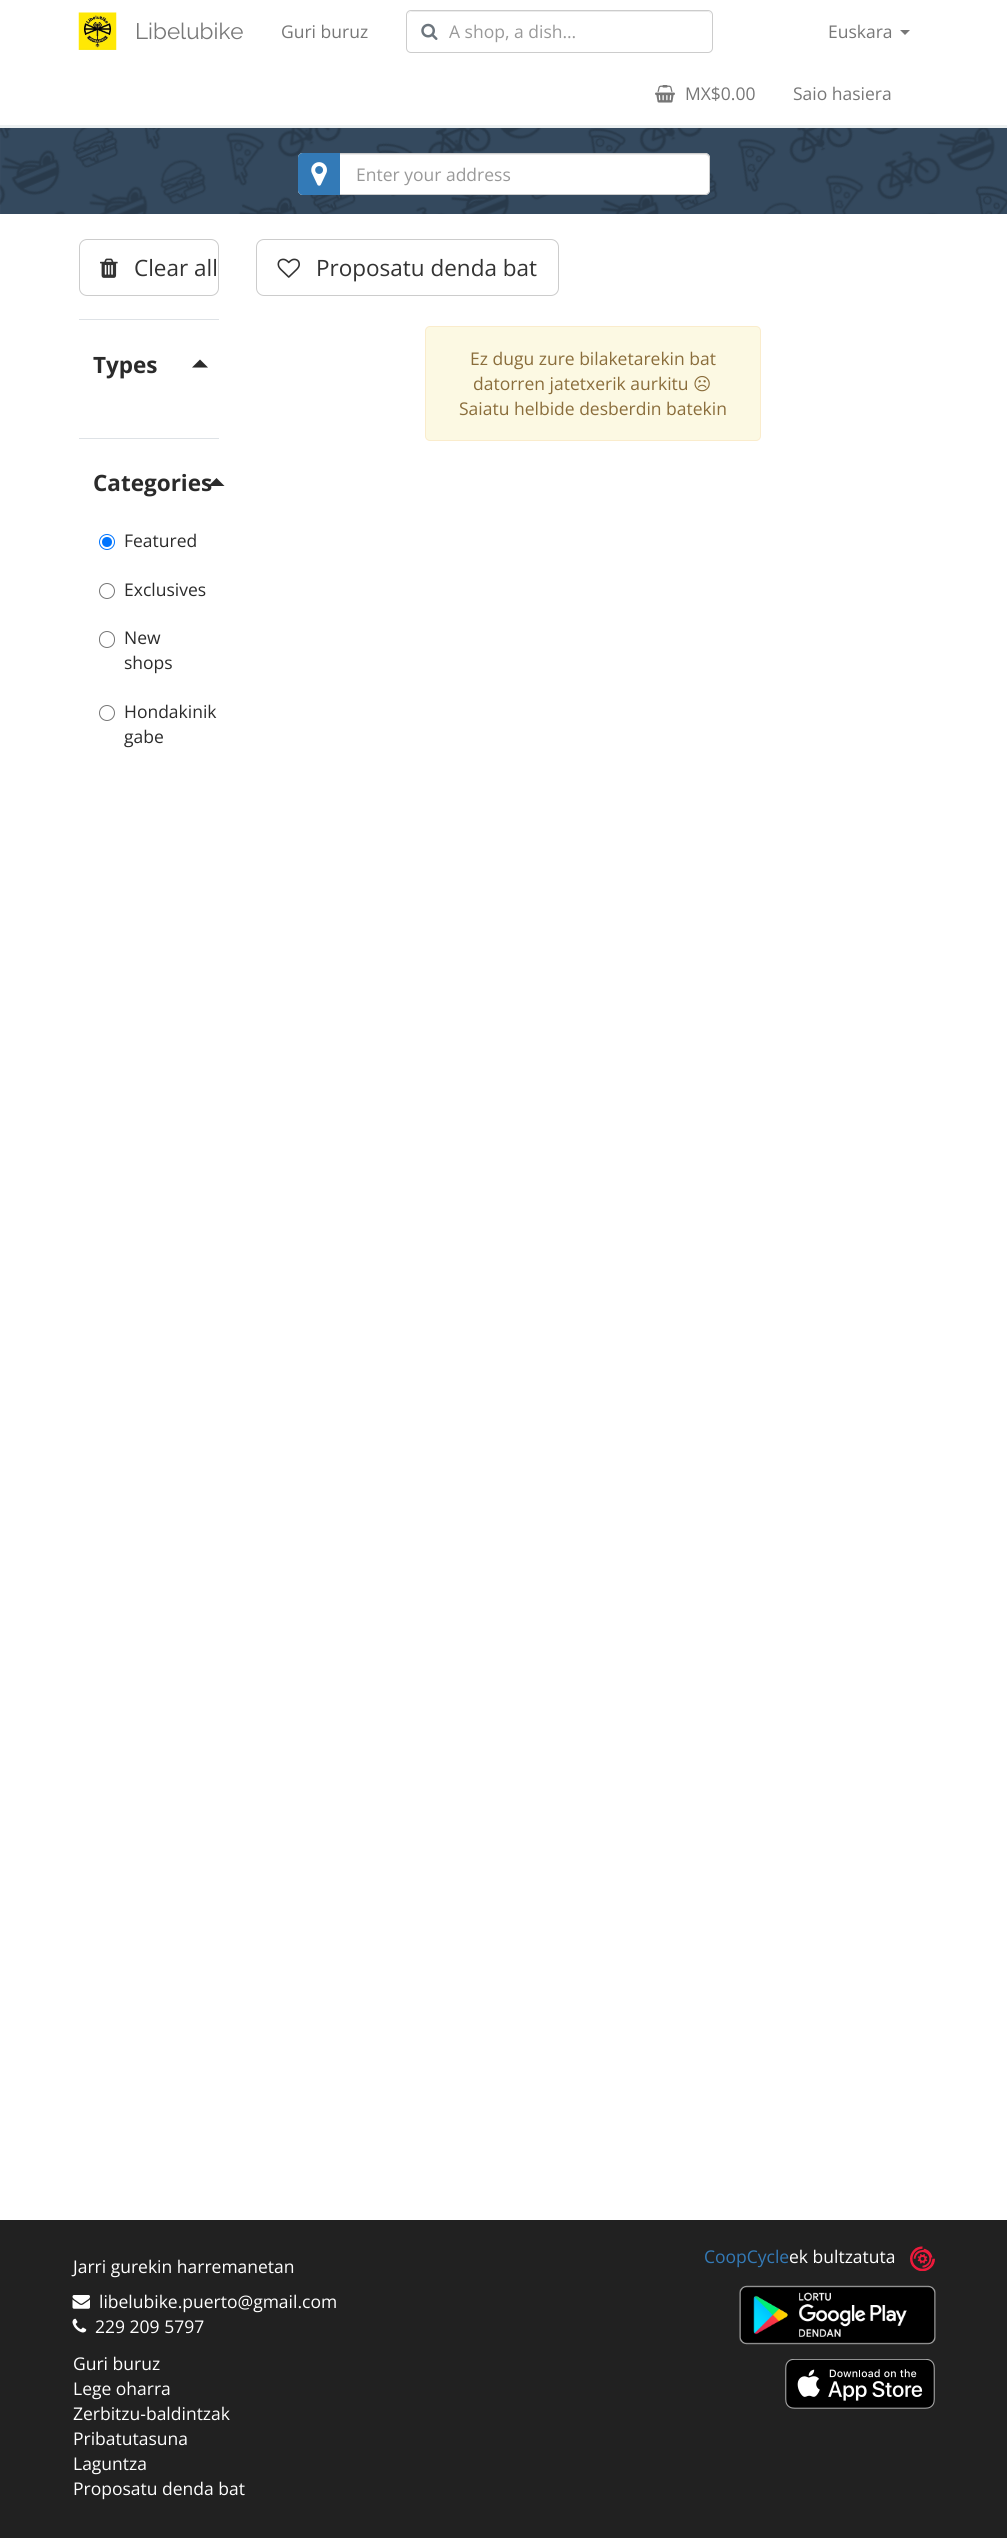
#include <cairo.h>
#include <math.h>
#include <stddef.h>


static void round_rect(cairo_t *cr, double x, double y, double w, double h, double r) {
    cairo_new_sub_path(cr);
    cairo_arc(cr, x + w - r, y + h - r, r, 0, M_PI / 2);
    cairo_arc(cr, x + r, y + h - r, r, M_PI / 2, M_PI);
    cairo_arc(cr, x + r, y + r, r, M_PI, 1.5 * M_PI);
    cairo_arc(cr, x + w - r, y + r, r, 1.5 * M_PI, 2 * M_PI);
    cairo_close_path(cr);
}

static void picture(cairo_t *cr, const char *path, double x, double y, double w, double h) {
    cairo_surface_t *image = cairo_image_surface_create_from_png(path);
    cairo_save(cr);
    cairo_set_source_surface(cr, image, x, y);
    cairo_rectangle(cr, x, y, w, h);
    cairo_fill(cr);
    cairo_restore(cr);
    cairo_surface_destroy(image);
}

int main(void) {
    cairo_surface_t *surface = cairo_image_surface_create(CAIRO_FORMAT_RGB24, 1007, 2538);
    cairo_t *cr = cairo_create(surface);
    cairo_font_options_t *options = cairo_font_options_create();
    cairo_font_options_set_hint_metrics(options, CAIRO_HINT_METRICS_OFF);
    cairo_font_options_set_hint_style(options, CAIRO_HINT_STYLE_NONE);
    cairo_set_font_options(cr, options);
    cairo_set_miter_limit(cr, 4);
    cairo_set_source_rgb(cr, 1, 1, 1);
    cairo_paint(cr);
    cairo_set_source_rgb(cr, 0.925, 0.941, 0.945);
    cairo_rectangle(cr, 0, 125, 1007, 3);
    cairo_fill(cr);
    picture(cr, "img1.png", 78, 12, 39, 38);
    cairo_select_font_face(cr, "Raleway", CAIRO_FONT_SLANT_NORMAL, CAIRO_FONT_WEIGHT_NORMAL);
    cairo_set_font_size(cr, 22.5);
    cairo_set_source_rgb(cr, 0.467, 0.467, 0.467);
    cairo_move_to(cr, 135, 39);
    cairo_show_text(cr, "Libelubike");
    cairo_select_font_face(cr, "Open Sans", CAIRO_FONT_SLANT_NORMAL, CAIRO_FONT_WEIGHT_NORMAL);
    cairo_set_font_size(cr, 17.5);
    cairo_move_to(cr, 281, 38);
    cairo_show_text(cr, "Guri buruz");
    cairo_set_source_rgb(cr, 0.925, 0.925, 0.925);
    cairo_new_path(cr);
    cairo_move_to(cr, 411, 12);
    cairo_line_to(cr, 708, 12);
    cairo_curve_to(cr, 710, 12, 711, 14, 711, 16);
    cairo_curve_to(cr, 711, 13, 710, 11, 707, 11);
    cairo_line_to(cr, 412, 11);
    cairo_line_to(cr, 409, 12);
    cairo_curve_to(cr, 408, 13, 408, 15, 408, 16);
    cairo_curve_to(cr, 408, 14, 409, 12, 411, 12);
    cairo_close_path(cr);
    cairo_fill(cr);
    round_rect(cr, 406.5, 10.5, 306, 42, 4.5);
    cairo_set_source_rgb(cr, 0.8, 0.8, 0.8);
    cairo_set_line_width(cr, 1);
    cairo_stroke(cr);
    picture(cr, "img2.png", 421, 23, 17, 17);
    cairo_set_source_rgb(cr, 0.6, 0.6, 0.6);
    cairo_move_to(cr, 449, 38);
    cairo_show_text(cr, "A shop, a dish…");
    cairo_set_source_rgb(cr, 0.467, 0.467, 0.467);
    cairo_move_to(cr, 828, 38);
    cairo_show_text(cr, "Euskara");
    cairo_new_path(cr);
    cairo_move_to(cr, 900, 30);
    cairo_line_to(cr, 910, 30);
    cairo_line_to(cr, 905, 35);
    cairo_close_path(cr);
    cairo_fill(cr);
    picture(cr, "img3.png", 655, 85, 20, 18);
    cairo_move_to(cr, 685, 100);
    cairo_show_text(cr, "MX$0.00");
    cairo_move_to(cr, 793, 100);
    cairo_show_text(cr, "Saio hasiera");
    picture(cr, "img4.png", 0, 128, 1007, 86);
    cairo_set_source_rgb(cr, 1, 1, 1);
    round_rect(cr, 298, 153, 412, 42, 5);
    cairo_fill(cr);
    cairo_set_source_rgb(cr, 0.925, 0.925, 0.925);
    cairo_new_path(cr);
    cairo_move_to(cr, 302, 155);
    cairo_line_to(cr, 705, 155);
    cairo_curve_to(cr, 707, 155, 709, 157, 709, 159);
    cairo_line_to(cr, 709, 158);
    cairo_curve_to(cr, 709, 156, 707, 154, 705, 154);
    cairo_line_to(cr, 303, 154);
    cairo_curve_to(cr, 301, 154, 299, 156, 299, 158);
    cairo_line_to(cr, 299, 159);
    cairo_curve_to(cr, 299, 157, 300, 155, 302, 155);
    cairo_close_path(cr);
    cairo_fill(cr);
    round_rect(cr, 298.5, 153.5, 411, 41, 4.5);
    cairo_set_source_rgb(cr, 0.8, 0.8, 0.8);
    cairo_stroke(cr);
    cairo_set_source_rgb(cr, 0.2, 0.478, 0.718);
    cairo_new_path(cr);
    cairo_move_to(cr, 303, 153);
    cairo_line_to(cr, 340, 153);
    cairo_line_to(cr, 340, 195);
    cairo_line_to(cr, 303, 195);
    cairo_curve_to(cr, 300, 195, 298, 193, 298, 190);
    cairo_line_to(cr, 298, 158);
    cairo_curve_to(cr, 298, 155, 300, 153, 303, 153);
    cairo_close_path(cr);
    cairo_fill(cr);
    picture(cr, "img5.png", 311, 162, 16, 24);
    cairo_set_source_rgb(cr, 0.6, 0.6, 0.6);
    cairo_move_to(cr, 356, 181);
    cairo_show_text(cr, "Enter your address");
    round_rect(cr, 79.5, 239.5, 139, 56, 7.5);
    cairo_set_source_rgb(cr, 0.8, 0.8, 0.8);
    cairo_stroke(cr);
    picture(cr, "img6.png", 100, 258, 18, 20);
    cairo_set_font_size(cr, 22.5);
    cairo_set_source_rgb(cr, 0.2, 0.2, 0.2);
    cairo_move_to(cr, 134, 276);
    cairo_show_text(cr, "Clear all");
    cairo_set_source_rgb(cr, 0.871, 0.886, 0.902);
    cairo_rectangle(cr, 79, 319, 140, 1);
    cairo_fill(cr);
    cairo_select_font_face(cr, "Open Sans", CAIRO_FONT_SLANT_NORMAL, CAIRO_FONT_WEIGHT_BOLD);
    cairo_set_source_rgb(cr, 0.169, 0.169, 0.169);
    cairo_move_to(cr, 93, 373);
    cairo_show_text(cr, "Types");
    cairo_new_path(cr);
    cairo_move_to(cr, 208, 367.5);
    cairo_line_to(cr, 192, 367.5);
    cairo_line_to(cr, 200, 359.5);
    cairo_close_path(cr);
    cairo_fill(cr);
    cairo_set_source_rgb(cr, 0.871, 0.886, 0.902);
    cairo_rectangle(cr, 79, 438, 140, 1);
    cairo_fill(cr);
    cairo_set_source_rgb(cr, 0.169, 0.169, 0.169);
    cairo_move_to(cr, 93, 491);
    cairo_show_text(cr, "Categories");
    cairo_new_path(cr);
    cairo_move_to(cr, 224.5, 486);
    cairo_line_to(cr, 208.5, 486);
    cairo_line_to(cr, 216.5, 478);
    cairo_close_path(cr);
    cairo_fill(cr);
    cairo_arc(cr, 107, 542, 7.5, 0, 2 * M_PI);
    cairo_set_source_rgb(cr, 0, 0.459, 1);
    cairo_stroke(cr);
    cairo_arc(cr, 107, 542, 5, 0, 2 * M_PI);
    cairo_fill(cr);
    cairo_select_font_face(cr, "Open Sans", CAIRO_FONT_SLANT_NORMAL, CAIRO_FONT_WEIGHT_NORMAL);
    cairo_set_font_size(cr, 17.5);
    cairo_set_source_rgb(cr, 0.169, 0.169, 0.169);
    cairo_move_to(cr, 124, 547);
    cairo_show_text(cr, "Featured");
    cairo_new_path(cr);
    cairo_arc(cr, 107, 591, 7.5, 0, 2 * M_PI);
    cairo_set_source_rgb(cr, 0.463, 0.463, 0.463);
    cairo_stroke(cr);
    cairo_set_source_rgb(cr, 0.169, 0.169, 0.169);
    cairo_move_to(cr, 124, 596);
    cairo_show_text(cr, "Exclusives");
    round_rect(cr, 99.5, 631.5, 15, 16, 7.5);
    cairo_set_source_rgb(cr, 0.463, 0.463, 0.463);
    cairo_stroke(cr);
    cairo_set_source_rgb(cr, 0.169, 0.169, 0.169);
    cairo_move_to(cr, 124, 644);
    cairo_show_text(cr, "New");
    cairo_move_to(cr, 124, 669);
    cairo_show_text(cr, "shops");
    cairo_new_path(cr);
    cairo_arc(cr, 107, 713, 7.5, 0, 2 * M_PI);
    cairo_set_source_rgb(cr, 0.463, 0.463, 0.463);
    cairo_stroke(cr);
    cairo_set_source_rgb(cr, 0.169, 0.169, 0.169);
    cairo_move_to(cr, 124, 718);
    cairo_show_text(cr, "Hondakinik");
    cairo_move_to(cr, 124, 743);
    cairo_show_text(cr, "gabe");
    round_rect(cr, 256.5, 239.5, 302, 56, 7.5);
    cairo_set_source_rgb(cr, 0.8, 0.8, 0.8);
    cairo_stroke(cr);
    picture(cr, "img7.png", 277, 258, 23, 20);
    cairo_set_font_size(cr, 22.5);
    cairo_set_source_rgb(cr, 0.2, 0.2, 0.2);
    cairo_move_to(cr, 316, 276);
    cairo_show_text(cr, "Proposatu denda bat");
    cairo_set_source_rgb(cr, 0.988, 0.973, 0.89);
    round_rect(cr, 425.5, 326.5, 335, 114, 4.5);
    cairo_fill_preserve(cr);
    cairo_set_source_rgb(cr, 0.98, 0.922, 0.8);
    cairo_stroke(cr);
    cairo_set_font_size(cr, 17.5);
    cairo_set_source_rgb(cr, 0.541, 0.427, 0.231);
    cairo_move_to(cr, 470, 365);
    cairo_show_text(cr, "Ez dugu zure bilaketarekin bat");
    cairo_move_to(cr, 473, 390);
    cairo_show_text(cr, "datorren jatetxerik aurkitu");
    cairo_select_font_face(cr, "DejaVu Sans", CAIRO_FONT_SLANT_NORMAL, CAIRO_FONT_WEIGHT_NORMAL);
    cairo_move_to(cr, 693, 390);
    cairo_show_text(cr, "☹");
    cairo_select_font_face(cr, "Open Sans", CAIRO_FONT_SLANT_NORMAL, CAIRO_FONT_WEIGHT_NORMAL);
    cairo_move_to(cr, 459, 415);
    cairo_show_text(cr, "Saiatu helbide desberdin batekin");
    cairo_set_source_rgb(cr, 0.129, 0.129, 0.129);
    cairo_rectangle(cr, 0, 2220, 1007, 318);
    cairo_fill(cr);
    cairo_set_source_rgb(cr, 1, 1, 1);
    cairo_move_to(cr, 73, 2273);
    cairo_show_text(cr, "Jarri gurekin harremanetan");
    picture(cr, "img8.png", 72, 2295, 18, 14);
    cairo_move_to(cr, 99, 2308);
    cairo_show_text(cr, "libelubike.puerto@gmail.com");
    picture(cr, "img9.png", 72, 2318, 15, 15);
    cairo_move_to(cr, 95, 2333);
    cairo_show_text(cr, "229 209 5797");
    cairo_move_to(cr, 73, 2370);
    cairo_show_text(cr, "Guri buruz");
    cairo_move_to(cr, 73, 2395);
    cairo_show_text(cr, "Lege oharra");
    cairo_move_to(cr, 73, 2420);
    cairo_show_text(cr, "Zerbitzu-baldintzak");
    cairo_move_to(cr, 73, 2445);
    cairo_show_text(cr, "Pribatutasuna");
    cairo_move_to(cr, 73, 2470);
    cairo_show_text(cr, "Laguntza");
    cairo_move_to(cr, 73, 2495);
    cairo_show_text(cr, "Proposatu denda bat");
    cairo_set_source_rgb(cr, 0.2, 0.478, 0.718);
    cairo_move_to(cr, 704, 2263);
    cairo_show_text(cr, "CoopCycle");
    cairo_set_source_rgb(cr, 1, 1, 1);
    cairo_move_to(cr, 789, 2263);
    cairo_show_text(cr, "ek bultzatuta");
    picture(cr, "img10.png", 910, 2246, 25, 25);
    picture(cr, "img11.png", 739, 2285, 197, 60);
    picture(cr, "img12.png", 785, 2359, 150, 50);
    cairo_surface_write_to_png(surface, "page.png");
    cairo_font_options_destroy(options);
    cairo_destroy(cr);
    cairo_surface_destroy(surface);
    return 0;
}
